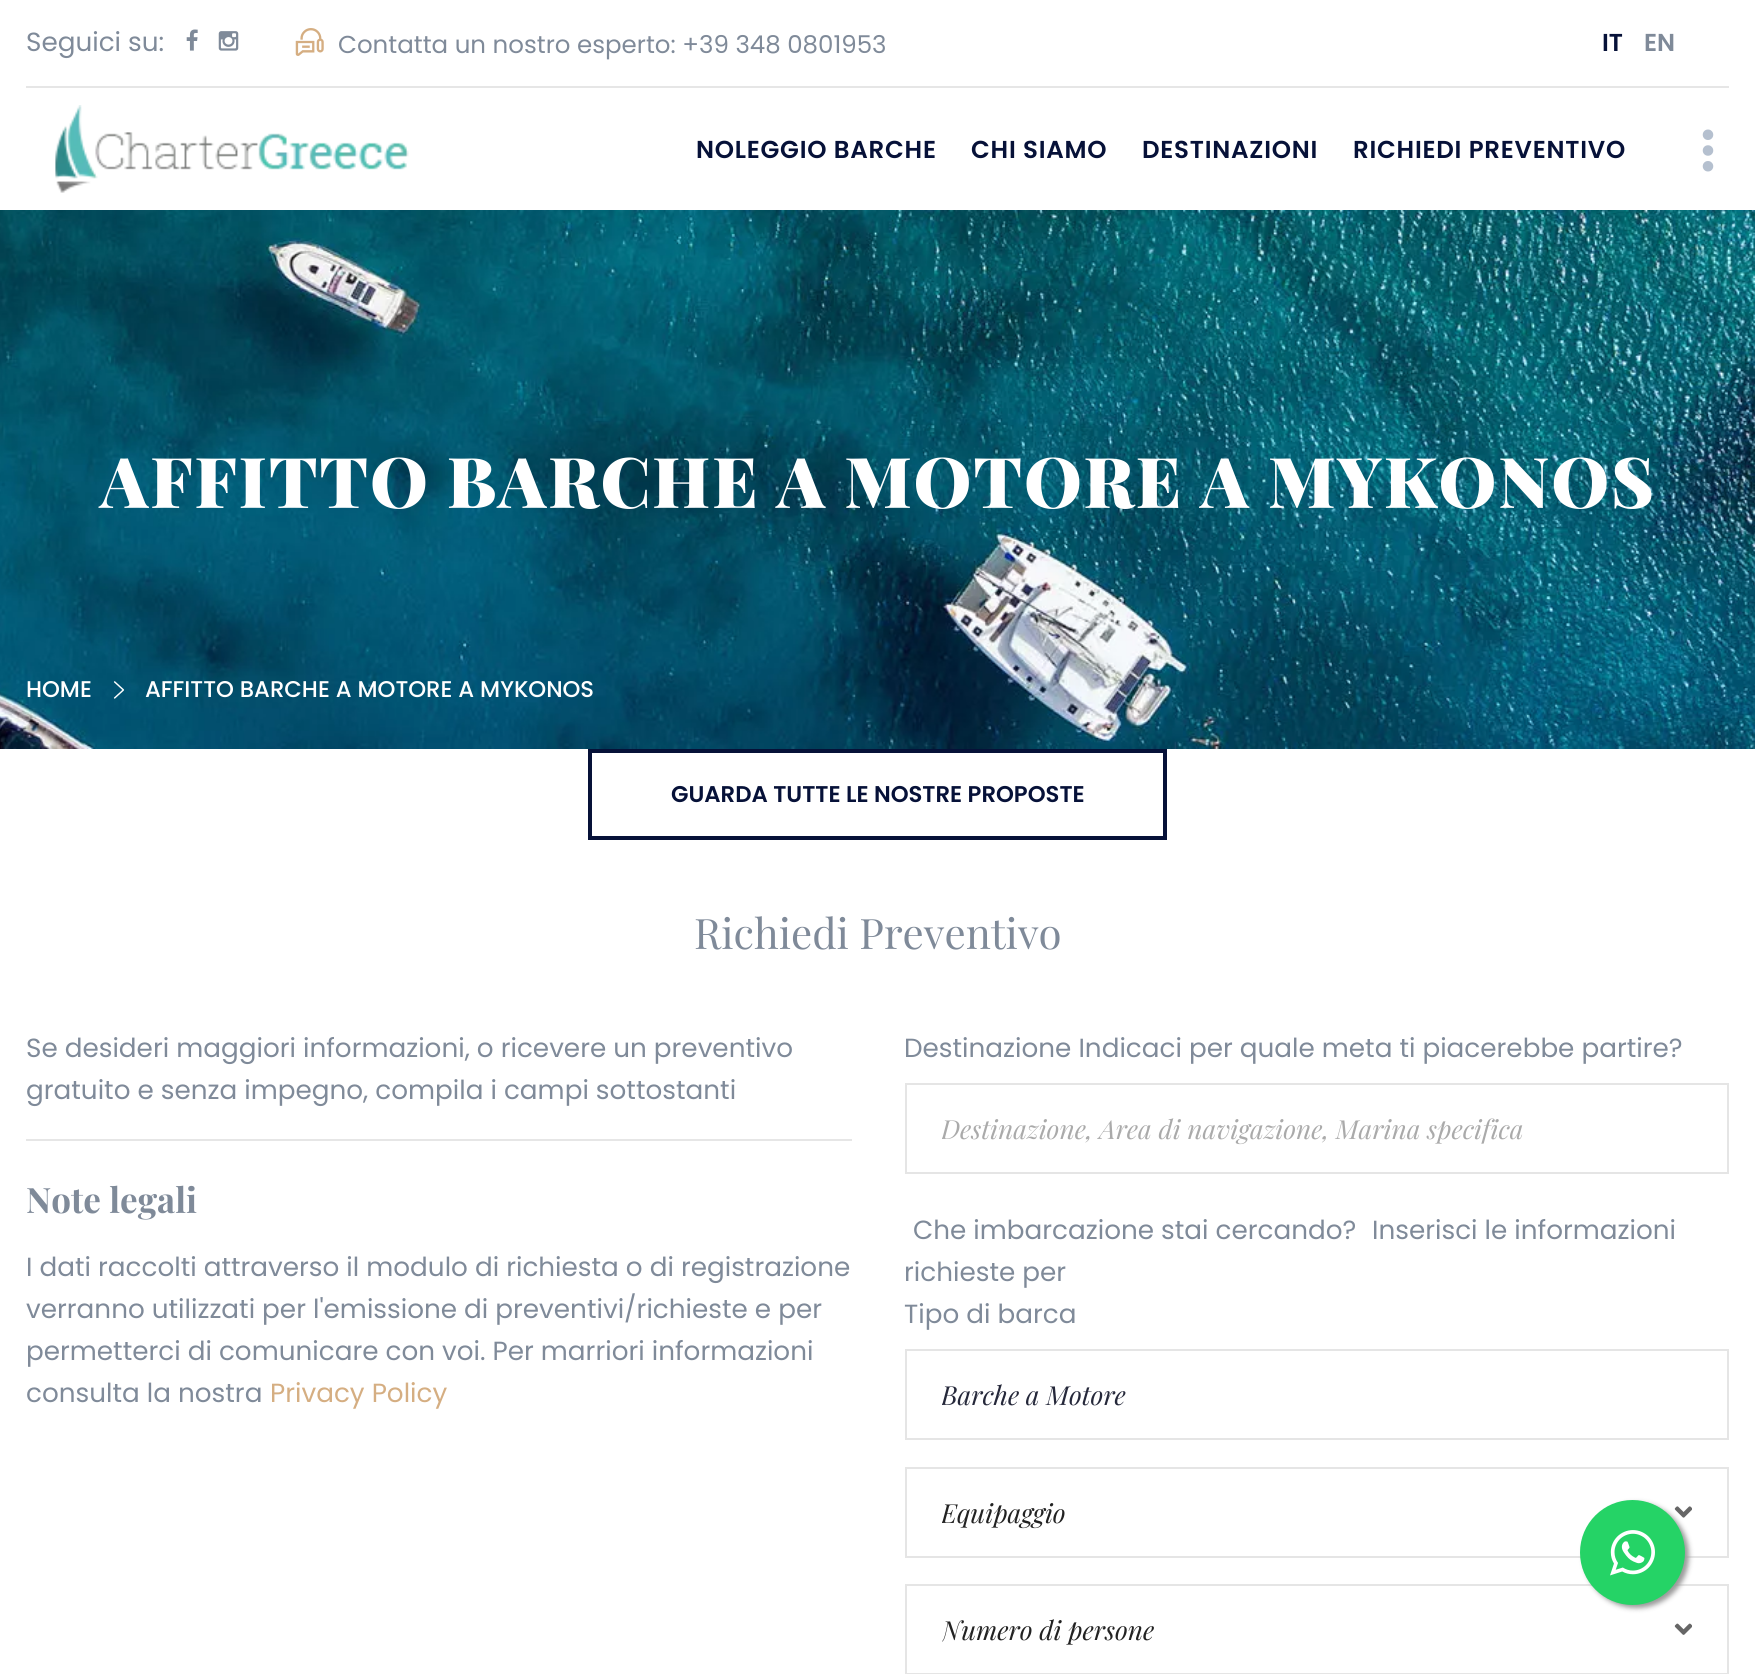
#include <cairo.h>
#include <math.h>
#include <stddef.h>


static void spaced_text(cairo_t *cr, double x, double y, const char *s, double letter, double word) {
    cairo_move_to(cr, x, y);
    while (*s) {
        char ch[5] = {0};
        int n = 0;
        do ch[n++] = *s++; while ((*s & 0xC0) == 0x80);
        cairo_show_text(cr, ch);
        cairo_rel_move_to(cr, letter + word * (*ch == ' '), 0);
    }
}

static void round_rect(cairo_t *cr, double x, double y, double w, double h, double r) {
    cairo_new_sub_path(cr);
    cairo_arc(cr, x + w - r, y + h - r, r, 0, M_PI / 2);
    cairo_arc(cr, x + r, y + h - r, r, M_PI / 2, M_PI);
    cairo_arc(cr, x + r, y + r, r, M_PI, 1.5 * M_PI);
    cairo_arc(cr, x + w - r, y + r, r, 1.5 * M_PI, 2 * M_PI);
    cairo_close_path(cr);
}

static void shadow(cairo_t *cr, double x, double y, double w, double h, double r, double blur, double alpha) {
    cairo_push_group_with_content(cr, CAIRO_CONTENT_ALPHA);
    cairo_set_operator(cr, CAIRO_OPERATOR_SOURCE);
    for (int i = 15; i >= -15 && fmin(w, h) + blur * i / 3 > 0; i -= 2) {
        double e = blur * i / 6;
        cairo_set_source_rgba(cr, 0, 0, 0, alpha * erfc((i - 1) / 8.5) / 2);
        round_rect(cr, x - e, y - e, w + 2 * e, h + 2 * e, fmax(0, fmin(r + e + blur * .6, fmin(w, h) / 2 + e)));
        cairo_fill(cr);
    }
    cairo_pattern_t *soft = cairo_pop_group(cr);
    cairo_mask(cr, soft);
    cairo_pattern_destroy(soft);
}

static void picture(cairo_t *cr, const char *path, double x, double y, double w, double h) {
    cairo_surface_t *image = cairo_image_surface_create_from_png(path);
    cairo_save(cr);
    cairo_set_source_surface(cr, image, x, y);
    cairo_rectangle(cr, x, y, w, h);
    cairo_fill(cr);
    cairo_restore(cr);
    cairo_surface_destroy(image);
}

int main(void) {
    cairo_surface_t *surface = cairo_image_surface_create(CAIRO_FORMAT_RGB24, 1755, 1674);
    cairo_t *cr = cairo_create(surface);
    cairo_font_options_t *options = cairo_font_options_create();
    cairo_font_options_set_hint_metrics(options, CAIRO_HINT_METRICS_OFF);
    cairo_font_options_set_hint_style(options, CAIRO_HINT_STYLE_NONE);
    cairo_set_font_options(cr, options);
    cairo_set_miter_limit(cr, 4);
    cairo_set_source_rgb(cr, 1, 1, 1);
    cairo_paint(cr);
    cairo_set_source_rgb(cr, 0.902, 0.902, 0.902);
    cairo_rectangle(cr, 26, 86, 1703, 2);
    cairo_fill(cr);
    cairo_select_font_face(cr, "Poppins", CAIRO_FONT_SLANT_NORMAL, CAIRO_FONT_WEIGHT_NORMAL);
    cairo_set_font_size(cr, 26.25);
    cairo_set_source_rgb(cr, 0.498, 0.541, 0.6);
    cairo_move_to(cr, 26, 51);
    cairo_show_text(cr, "Seguici su:");
    picture(cr, "img1.png", 186, 29, 12, 22);
    picture(cr, "img2.png", 218, 31, 21, 20);
    picture(cr, "img3.png", 295, 28, 29, 28);
    cairo_set_font_size(cr, 24.5);
    cairo_move_to(cr, 338, 53);
    cairo_show_text(cr, "Contatta un nostro esperto: +39 348 0801953");
    cairo_select_font_face(cr, "Poppins SemiBold", CAIRO_FONT_SLANT_NORMAL, CAIRO_FONT_WEIGHT_NORMAL);
    cairo_set_source_rgb(cr, 0.024, 0.067, 0.22);
    cairo_move_to(cr, 1602, 51);
    cairo_show_text(cr, "IT");
    cairo_set_source_rgb(cr, 0.498, 0.541, 0.6);
    cairo_move_to(cr, 1644, 51);
    cairo_show_text(cr, "EN");
    picture(cr, "img4.png", 55, 105, 354, 88);
    cairo_set_source_rgb(cr, 0.024, 0.067, 0.22);
    spaced_text(cr, 696, 158, "NOLEGGIO BARCHE", 0.75, 0);
    spaced_text(cr, 971, 158, "CHI SIAMO", 0.75, 0);
    spaced_text(cr, 1142, 158, "DESTINAZIONI", 0.75, 0);
    spaced_text(cr, 1353, 158, "RICHIEDI PREVENTIVO", 0.75, 0);
    picture(cr, "img5.png", 1702, 129, 12, 43);
    picture(cr, "img6.png", 0, 210, 1755, 539);
    cairo_select_font_face(cr, "Playfair Display Black", CAIRO_FONT_SLANT_NORMAL, CAIRO_FONT_WEIGHT_NORMAL);
    cairo_set_font_size(cr, 70);
    cairo_set_source_rgb(cr, 1, 1, 1);
    spaced_text(cr, 100, 508, "AFFITTO BARCHE A MOTORE A MYKONOS", 1.75, 0);
    cairo_select_font_face(cr, "Poppins Medium", CAIRO_FONT_SLANT_NORMAL, CAIRO_FONT_WEIGHT_NORMAL);
    cairo_set_font_size(cr, 22.75);
    cairo_move_to(cr, 26, 697);
    cairo_show_text(cr, "HOME");
    picture(cr, "img7.png", 113, 681, 12, 18);
    cairo_move_to(cr, 145, 697);
    cairo_show_text(cr, "AFFITTO BARCHE A MOTORE A MYKONOS");
    cairo_rectangle(cr, 590, 751, 575, 87);
    cairo_set_source_rgb(cr, 0.024, 0.067, 0.22);
    cairo_set_line_width(cr, 4);
    cairo_stroke(cr);
    cairo_select_font_face(cr, "Poppins SemiBold", CAIRO_FONT_SLANT_NORMAL, CAIRO_FONT_WEIGHT_NORMAL);
    cairo_move_to(cr, 671, 802);
    cairo_show_text(cr, "GUARDA TUTTE LE NOSTRE PROPOSTE");
    cairo_select_font_face(cr, "Playfair Display", CAIRO_FONT_SLANT_NORMAL, CAIRO_FONT_WEIGHT_NORMAL);
    cairo_set_font_size(cr, 42);
    cairo_set_source_rgb(cr, 0.498, 0.541, 0.6);
    cairo_move_to(cr, 694, 949);
    cairo_show_text(cr, "Richiedi Preventivo");
    cairo_select_font_face(cr, "Poppins", CAIRO_FONT_SLANT_NORMAL, CAIRO_FONT_WEIGHT_NORMAL);
    cairo_set_font_size(cr, 26.25);
    cairo_move_to(cr, 26, 1057);
    cairo_show_text(cr, "Se desideri maggiori informazioni, o ricevere un preventivo");
    cairo_move_to(cr, 26, 1099);
    cairo_show_text(cr, "gratuito e senza impegno, compila i campi sottostanti");
    cairo_set_source_rgb(cr, 0.902, 0.902, 0.902);
    cairo_rectangle(cr, 26, 1139, 826, 2);
    cairo_fill(cr);
    cairo_select_font_face(cr, "Playfair Display", CAIRO_FONT_SLANT_NORMAL, CAIRO_FONT_WEIGHT_BOLD);
    cairo_set_font_size(cr, 35);
    cairo_set_source_rgb(cr, 0.498, 0.541, 0.6);
    cairo_move_to(cr, 26, 1213);
    cairo_show_text(cr, "Note legali");
    cairo_select_font_face(cr, "Poppins", CAIRO_FONT_SLANT_NORMAL, CAIRO_FONT_WEIGHT_NORMAL);
    cairo_set_font_size(cr, 26.25);
    cairo_move_to(cr, 26, 1276);
    cairo_show_text(cr, "I dati raccolti attraverso il modulo di richiesta o di registrazione");
    cairo_move_to(cr, 26, 1318);
    cairo_show_text(cr, "verranno utilizzati per l'emissione di preventivi/richieste e per");
    cairo_move_to(cr, 26, 1360);
    cairo_show_text(cr, "permetterci di comunicare con voi. Per marriori informazioni");
    cairo_move_to(cr, 26, 1402);
    cairo_show_text(cr, "consulta la nostra");
    cairo_set_source_rgb(cr, 0.835, 0.682, 0.51);
    cairo_move_to(cr, 270, 1402);
    cairo_show_text(cr, "Privacy Policy");
    cairo_set_source_rgb(cr, 0.498, 0.541, 0.6);
    cairo_move_to(cr, 904, 1057);
    cairo_show_text(cr, "Destinazione Indicaci per quale meta ti piacerebbe partire?");
    cairo_rectangle(cr, 906, 1084, 822, 89);
    cairo_set_source_rgb(cr, 0.898, 0.898, 0.898);
    cairo_set_line_width(cr, 2);
    cairo_stroke(cr);
    cairo_save(cr);
    cairo_rectangle(cr, 942, 1111, 742, 35);
    cairo_clip(cr);
    cairo_select_font_face(cr, "Playfair Display", CAIRO_FONT_SLANT_ITALIC, CAIRO_FONT_WEIGHT_NORMAL);
    cairo_set_source_rgb(cr, 0.667, 0.667, 0.667);
    cairo_move_to(cr, 941, 1139);
    cairo_show_text(cr, "Destinazione, Area di navigazione, Marina specifica");
    cairo_restore(cr);
    cairo_set_source_rgb(cr, 0.498, 0.541, 0.6);
    cairo_move_to(cr, 913, 1239);
    cairo_show_text(cr, "Che imbarcazione stai cercando?");
    cairo_move_to(cr, 1372, 1239);
    cairo_show_text(cr, "Inserisci le informazioni");
    cairo_move_to(cr, 904, 1281);
    cairo_show_text(cr, "richieste per");
    cairo_move_to(cr, 904, 1323);
    cairo_show_text(cr, "Tipo di barca");
    cairo_rectangle(cr, 906, 1350, 822, 89);
    cairo_set_source_rgb(cr, 0.898, 0.898, 0.898);
    cairo_stroke(cr);
    cairo_save(cr);
    cairo_rectangle(cr, 942, 1377, 742, 35);
    cairo_clip(cr);
    cairo_select_font_face(cr, "Playfair Display", CAIRO_FONT_SLANT_ITALIC, CAIRO_FONT_WEIGHT_NORMAL);
    cairo_set_source_rgb(cr, 0.145, 0.157, 0.227);
    cairo_move_to(cr, 941, 1405);
    cairo_show_text(cr, "Barche a Motore");
    cairo_restore(cr);
    cairo_rectangle(cr, 906, 1468, 822, 89);
    cairo_stroke(cr);
    cairo_save(cr);
    cairo_rectangle(cr, 942, 1486, 707, 52);
    cairo_clip(cr);
    cairo_select_font_face(cr, "Playfair Display", CAIRO_FONT_SLANT_ITALIC, CAIRO_FONT_WEIGHT_NORMAL);
    cairo_set_source_rgb(cr, 0.133, 0.133, 0.133);
    cairo_move_to(cr, 941, 1523);
    cairo_show_text(cr, "Equipaggio");
    cairo_restore(cr);
    picture(cr, "img8.png", 1674, 1506, 18, 12);
    cairo_rectangle(cr, 906, 1585, 822, 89);
    cairo_stroke(cr);
    cairo_save(cr);
    cairo_rectangle(cr, 942, 1603, 707, 53);
    cairo_clip(cr);
    cairo_select_font_face(cr, "Playfair Display", CAIRO_FONT_SLANT_ITALIC, CAIRO_FONT_WEIGHT_NORMAL);
    cairo_set_source_rgb(cr, 0.133, 0.133, 0.133);
    cairo_move_to(cr, 941, 1640);
    cairo_show_text(cr, "Numero di persone");
    cairo_restore(cr);
    picture(cr, "img9.png", 1674, 1623, 18, 12);
    cairo_set_source_rgb(cr, 0.6, 0.6, 0.6);
    shadow(cr, 1584, 1503, 105, 105, 52.5, 2.5, 1);
    cairo_set_source_rgb(cr, 0.145, 0.827, 0.4);
    cairo_arc(cr, 1632.5, 1552.5, 52.5, 0, 2 * M_PI);
    cairo_fill(cr);
    picture(cr, "img10.png", 1610, 1530, 45, 46);
    cairo_surface_write_to_png(surface, "page.png");
    cairo_font_options_destroy(options);
    cairo_destroy(cr);
    cairo_surface_destroy(surface);
    return 0;
}
